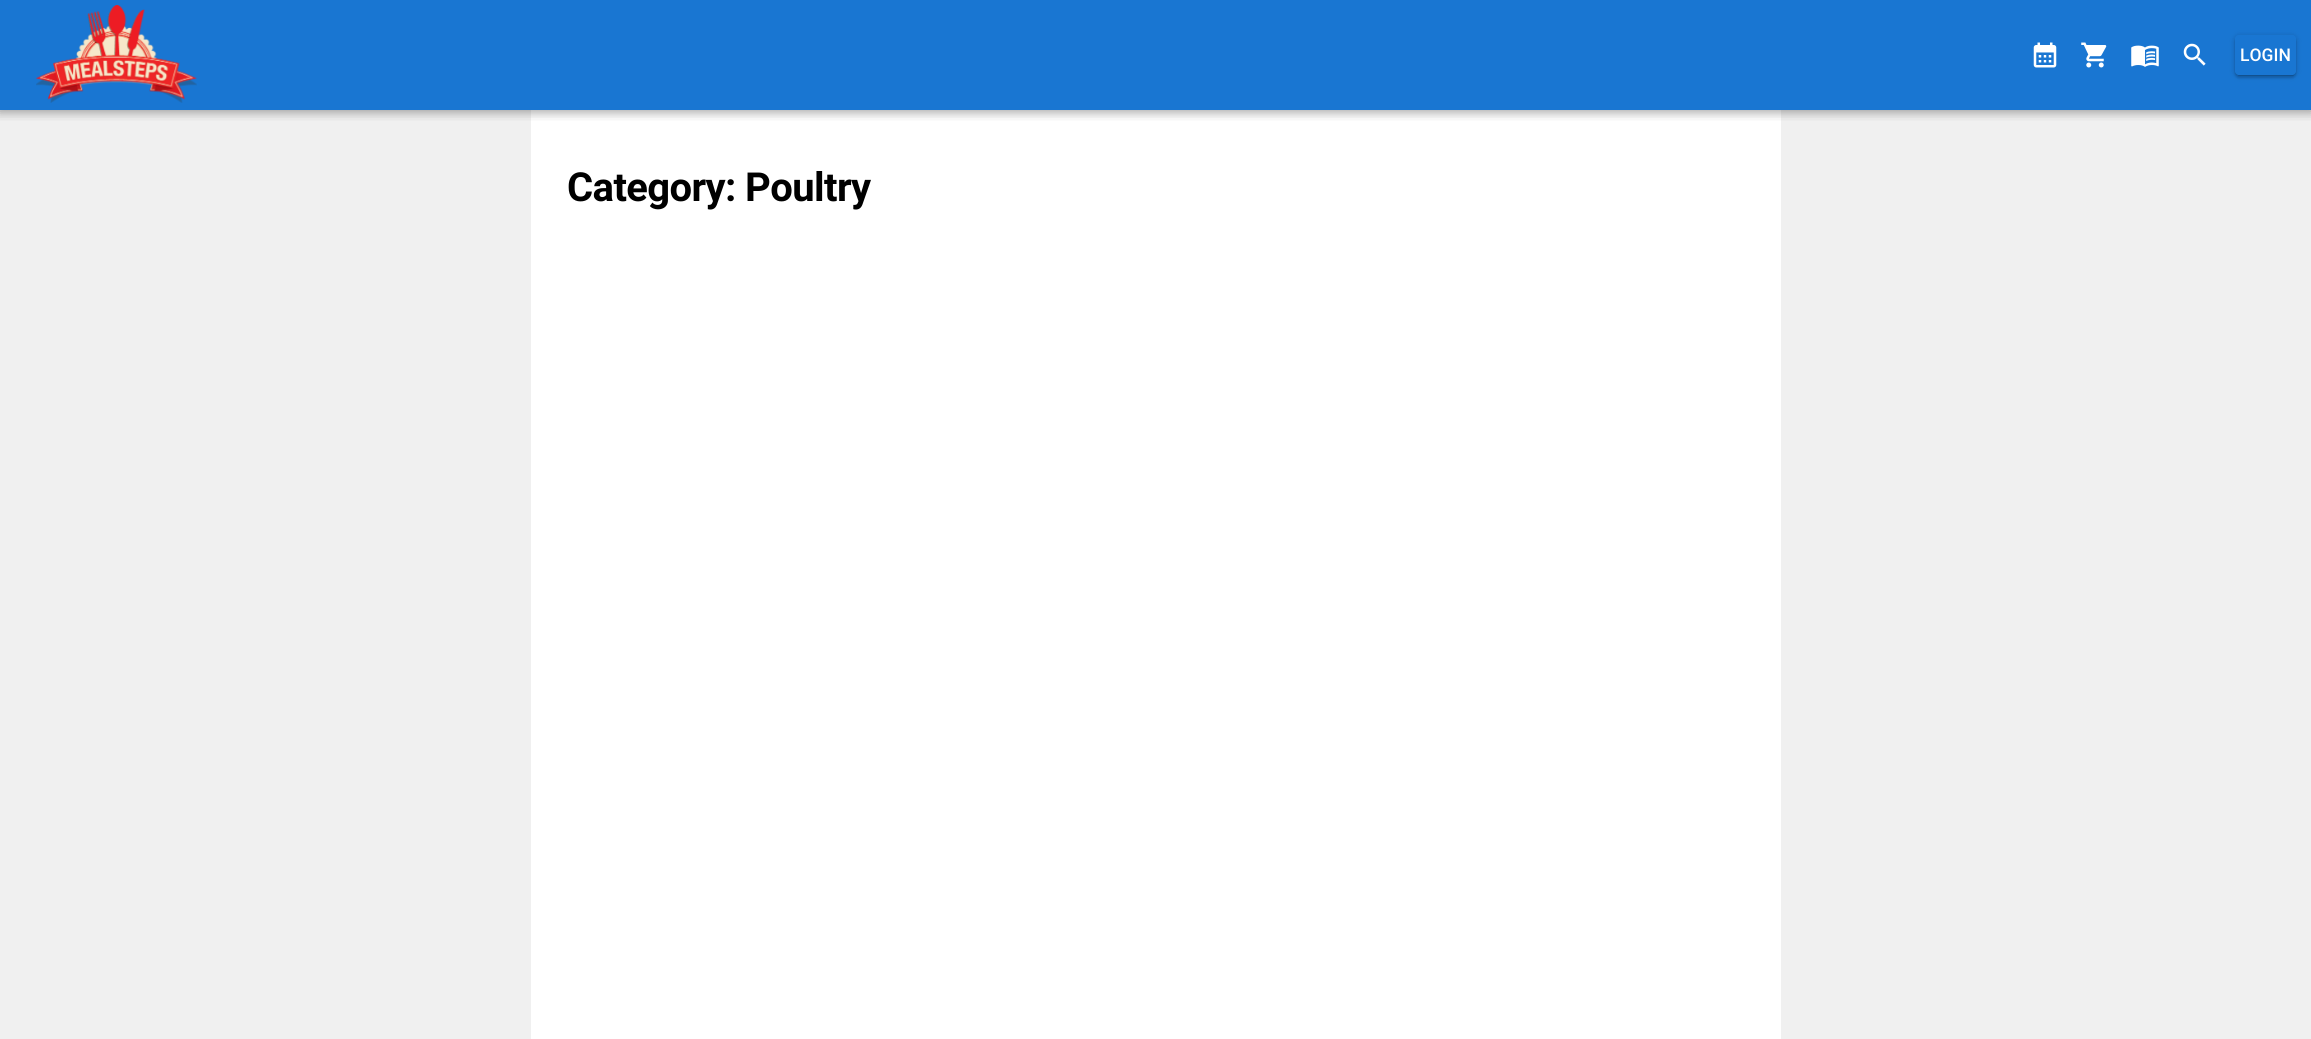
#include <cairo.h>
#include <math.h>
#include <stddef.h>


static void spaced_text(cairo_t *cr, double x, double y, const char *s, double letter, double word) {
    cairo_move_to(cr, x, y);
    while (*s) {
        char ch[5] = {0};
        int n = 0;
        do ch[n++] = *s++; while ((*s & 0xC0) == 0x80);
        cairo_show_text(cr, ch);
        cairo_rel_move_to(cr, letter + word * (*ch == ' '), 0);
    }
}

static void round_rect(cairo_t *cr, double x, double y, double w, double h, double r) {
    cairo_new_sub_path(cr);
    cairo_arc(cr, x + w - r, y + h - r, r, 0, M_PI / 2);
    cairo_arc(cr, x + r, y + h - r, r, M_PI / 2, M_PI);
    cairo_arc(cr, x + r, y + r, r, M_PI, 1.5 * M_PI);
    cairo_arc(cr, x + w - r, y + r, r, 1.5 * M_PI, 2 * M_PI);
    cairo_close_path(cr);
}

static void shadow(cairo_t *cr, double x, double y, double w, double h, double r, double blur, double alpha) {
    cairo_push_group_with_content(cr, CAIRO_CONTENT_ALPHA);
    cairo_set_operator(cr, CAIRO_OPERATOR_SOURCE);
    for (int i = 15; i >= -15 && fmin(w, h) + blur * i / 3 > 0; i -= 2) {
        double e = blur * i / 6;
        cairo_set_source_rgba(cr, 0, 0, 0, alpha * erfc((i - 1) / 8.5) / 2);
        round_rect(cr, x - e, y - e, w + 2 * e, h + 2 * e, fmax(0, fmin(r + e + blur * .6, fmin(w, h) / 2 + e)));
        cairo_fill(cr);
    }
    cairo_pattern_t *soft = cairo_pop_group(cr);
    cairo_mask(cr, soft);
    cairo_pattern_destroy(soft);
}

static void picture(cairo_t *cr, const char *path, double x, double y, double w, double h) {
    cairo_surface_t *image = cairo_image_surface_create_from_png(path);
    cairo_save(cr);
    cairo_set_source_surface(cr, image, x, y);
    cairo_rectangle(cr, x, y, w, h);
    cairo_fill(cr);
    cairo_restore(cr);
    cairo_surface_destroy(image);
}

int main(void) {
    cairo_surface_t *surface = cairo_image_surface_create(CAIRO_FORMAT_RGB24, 2311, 1039);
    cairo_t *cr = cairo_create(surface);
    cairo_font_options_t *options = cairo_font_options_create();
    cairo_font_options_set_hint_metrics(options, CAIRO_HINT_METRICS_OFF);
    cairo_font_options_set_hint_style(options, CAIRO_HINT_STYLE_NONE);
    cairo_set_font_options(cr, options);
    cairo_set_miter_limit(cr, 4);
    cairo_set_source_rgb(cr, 0.941, 0.941, 0.941);
    cairo_paint(cr);
    cairo_set_source_rgb(cr, 0.098, 0.463, 0.824);
    cairo_rectangle(cr, 0, 0, 2311, 110);
    cairo_fill(cr);
    picture(cr, "img1.png", 36, 5, 161, 98);
    picture(cr, "img2.png", 2033, 42, 24, 26);
    picture(cr, "img3.png", 2081, 42, 26, 26);
    picture(cr, "img4.png", 2131, 45, 28, 22);
    picture(cr, "img5.png", 2183, 43, 23, 23);
    cairo_set_source_rgb(cr, 1, 1, 1);
    cairo_rectangle(cr, 531, 110, 1250, 929);
    cairo_fill(cr);
    cairo_save(cr);
    cairo_rectangle(cr, 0, 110, 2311, 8);
    cairo_clip(cr);
    cairo_set_source_rgb(cr, 0, 0, 0);
    shadow(cr, 0, 0, 2311, 110, 0, 6, 0.24);
    cairo_restore(cr);
    cairo_save(cr);
    cairo_rectangle(cr, 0, 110, 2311, 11);
    cairo_clip(cr);
    cairo_set_source_rgb(cr, 0, 0, 0);
    shadow(cr, -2, -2, 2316, 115, 0, 6, 0.2);
    cairo_restore(cr);
    cairo_save(cr);
    cairo_rectangle(cr, 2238, 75, 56, 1);
    cairo_clip(cr);
    cairo_set_source_rgb(cr, 0, 0, 0);
    shadow(cr, 2238, 41, 56, 35, 1, 0.5, 0.12);
    cairo_restore(cr);
    cairo_save(cr);
    cairo_set_fill_rule(cr, CAIRO_FILL_RULE_EVEN_ODD);
    cairo_new_path(cr);
    cairo_move_to(cr, 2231, 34);
    cairo_line_to(cr, 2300, 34);
    cairo_line_to(cr, 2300, 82);
    cairo_line_to(cr, 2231, 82);
    cairo_close_path(cr);
    cairo_move_to(cr, 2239, 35);
    cairo_line_to(cr, 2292, 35);
    cairo_curve_to(cr, 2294, 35, 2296, 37, 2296, 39);
    cairo_line_to(cr, 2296, 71);
    cairo_curve_to(cr, 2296, 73, 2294, 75, 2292, 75);
    cairo_line_to(cr, 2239, 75);
    cairo_curve_to(cr, 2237, 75, 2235, 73, 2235, 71);
    cairo_line_to(cr, 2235, 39);
    cairo_curve_to(cr, 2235, 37, 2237, 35, 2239, 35);
    cairo_close_path(cr);
    cairo_clip(cr);
    cairo_set_source_rgb(cr, 0, 0, 0);
    shadow(cr, 2235, 38, 61, 40, 4, 1, 0.14);
    cairo_restore(cr);
    cairo_save(cr);
    cairo_set_fill_rule(cr, CAIRO_FILL_RULE_EVEN_ODD);
    cairo_new_path(cr);
    cairo_move_to(cr, 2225, 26);
    cairo_line_to(cr, 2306, 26);
    cairo_line_to(cr, 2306, 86);
    cairo_line_to(cr, 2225, 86);
    cairo_close_path(cr);
    cairo_move_to(cr, 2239, 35);
    cairo_line_to(cr, 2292, 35);
    cairo_curve_to(cr, 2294, 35, 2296, 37, 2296, 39);
    cairo_line_to(cr, 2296, 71);
    cairo_curve_to(cr, 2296, 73, 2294, 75, 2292, 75);
    cairo_line_to(cr, 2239, 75);
    cairo_curve_to(cr, 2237, 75, 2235, 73, 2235, 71);
    cairo_line_to(cr, 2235, 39);
    cairo_curve_to(cr, 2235, 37, 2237, 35, 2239, 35);
    cairo_close_path(cr);
    cairo_clip(cr);
    cairo_set_source_rgb(cr, 0, 0, 0);
    shadow(cr, 2235, 36, 61, 40, 4, 3, 0.2);
    cairo_restore(cr);
    cairo_select_font_face(cr, "Roboto Medium", CAIRO_FONT_SLANT_NORMAL, CAIRO_FONT_WEIGHT_NORMAL);
    cairo_set_font_size(cr, 17.5);
    cairo_move_to(cr, 2240, 61);
    cairo_show_text(cr, "LOGIN");
    cairo_select_font_face(cr, "Roboto", CAIRO_FONT_SLANT_NORMAL, CAIRO_FONT_WEIGHT_BOLD);
    cairo_set_font_size(cr, 40);
    cairo_set_source_rgb(cr, 0, 0, 0);
    spaced_text(cr, 567, 201, "Category: Poultry", -0.6, 0);
    cairo_surface_write_to_png(surface, "page.png");
    cairo_font_options_destroy(options);
    cairo_destroy(cr);
    cairo_surface_destroy(surface);
    return 0;
}
